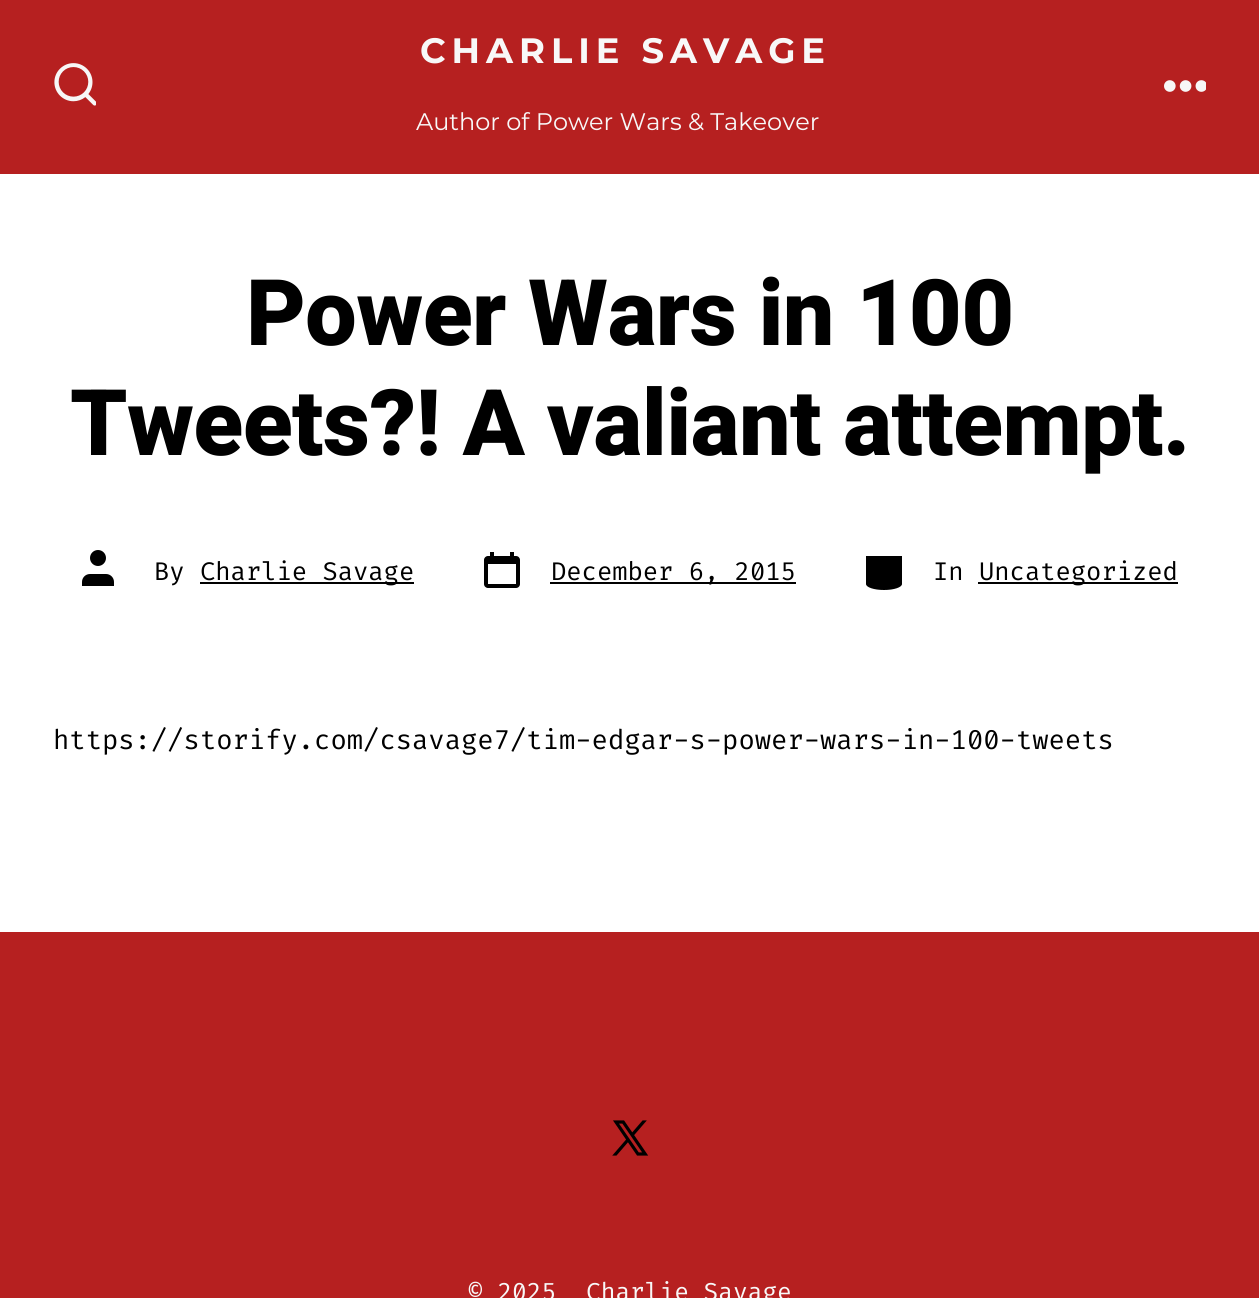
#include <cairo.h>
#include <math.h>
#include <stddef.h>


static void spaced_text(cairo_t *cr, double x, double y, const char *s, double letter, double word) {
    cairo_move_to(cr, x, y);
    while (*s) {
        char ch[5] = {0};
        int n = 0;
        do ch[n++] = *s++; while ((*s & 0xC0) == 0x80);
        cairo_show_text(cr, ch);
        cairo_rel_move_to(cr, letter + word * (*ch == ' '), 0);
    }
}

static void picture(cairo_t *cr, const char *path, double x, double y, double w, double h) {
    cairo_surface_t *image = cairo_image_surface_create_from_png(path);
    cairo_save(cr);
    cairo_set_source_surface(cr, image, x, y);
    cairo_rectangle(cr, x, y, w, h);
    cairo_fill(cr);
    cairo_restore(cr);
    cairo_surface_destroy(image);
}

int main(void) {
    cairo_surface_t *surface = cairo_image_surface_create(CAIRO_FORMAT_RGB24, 1259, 1298);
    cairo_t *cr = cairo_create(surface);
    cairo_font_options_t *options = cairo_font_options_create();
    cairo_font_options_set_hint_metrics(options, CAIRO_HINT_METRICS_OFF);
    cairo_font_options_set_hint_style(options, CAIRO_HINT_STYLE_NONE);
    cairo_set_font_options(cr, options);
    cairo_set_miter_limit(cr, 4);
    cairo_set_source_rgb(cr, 1, 1, 1);
    cairo_paint(cr);
    cairo_set_source_rgb(cr, 0.714, 0.125, 0.125);
    cairo_rectangle(cr, 0, 0, 1259, 174);
    cairo_fill(cr);
    picture(cr, "img1.png", 54, 63, 42, 43);
    cairo_select_font_face(cr, "Montserrat", CAIRO_FONT_SLANT_NORMAL, CAIRO_FONT_WEIGHT_BOLD);
    cairo_set_font_size(cr, 35.25);
    cairo_set_source_rgb(cr, 0.969, 0.969, 0.969);
    spaced_text(cr, 420, 63, "CHARLIE SAVAGE", 6, 0);
    cairo_select_font_face(cr, "Montserrat", CAIRO_FONT_SLANT_NORMAL, CAIRO_FONT_WEIGHT_NORMAL);
    cairo_set_font_size(cr, 24);
    cairo_move_to(cr, 416, 130);
    cairo_show_text(cr, "Author of Power Wars & Takeover");
    picture(cr, "img2.png", 1164, 80, 42, 12);
    cairo_select_font_face(cr, "Heebo ExtraBold", CAIRO_FONT_SLANT_NORMAL, CAIRO_FONT_WEIGHT_NORMAL);
    cairo_set_font_size(cr, 91.9);
    cairo_set_source_rgb(cr, 0, 0, 0);
    spaced_text(cr, 246, 345, "Power Wars in 100", -0.65, 0);
    spaced_text(cr, 70, 455, "Tweets?! A valiant attempt.", -0.65, 0);
    picture(cr, "img3.png", 82, 550, 32, 36);
    cairo_select_font_face(cr, "Fira Code", CAIRO_FONT_SLANT_NORMAL, CAIRO_FONT_WEIGHT_NORMAL);
    cairo_set_font_size(cr, 25.5);
    cairo_move_to(cr, 154, 580);
    cairo_show_text(cr, "By");
    cairo_rectangle(cr, 200, 582, 214, 2);
    cairo_fill(cr);
    cairo_move_to(cr, 200, 580);
    cairo_show_text(cr, "Charlie Savage");
    picture(cr, "img4.png", 484, 552, 36, 36);
    cairo_rectangle(cr, 550, 582, 246, 2);
    cairo_fill(cr);
    cairo_move_to(cr, 551, 580);
    cairo_show_text(cr, "December 6, 2015");
    picture(cr, "img5.png", 866, 556, 36, 34);
    cairo_move_to(cr, 933, 580);
    cairo_show_text(cr, "In");
    cairo_rectangle(cr, 978, 582, 200, 2);
    cairo_fill(cr);
    cairo_move_to(cr, 979, 580);
    cairo_show_text(cr, "Uncategorized");
    cairo_set_font_size(cr, 27.2);
    cairo_move_to(cr, 53, 749);
    cairo_show_text(cr, "https://storify.com/csavage7/tim-edgar-s-power-wars-in-100-tweets");
    cairo_set_source_rgb(cr, 0.714, 0.125, 0.125);
    cairo_rectangle(cr, 0, 932, 1259, 366);
    cairo_fill(cr);
    picture(cr, "img6.png", 612, 1120, 37, 36);
    cairo_set_font_size(cr, 24.5);
    cairo_set_source_rgb(cr, 0.969, 0.969, 0.969);
    cairo_move_to(cr, 468, 1300);
    cairo_show_text(cr, "© 2025");
    cairo_move_to(cr, 586, 1300);
    cairo_show_text(cr, "Charlie Savage");
    cairo_surface_write_to_png(surface, "page.png");
    cairo_font_options_destroy(options);
    cairo_destroy(cr);
    cairo_surface_destroy(surface);
    return 0;
}
